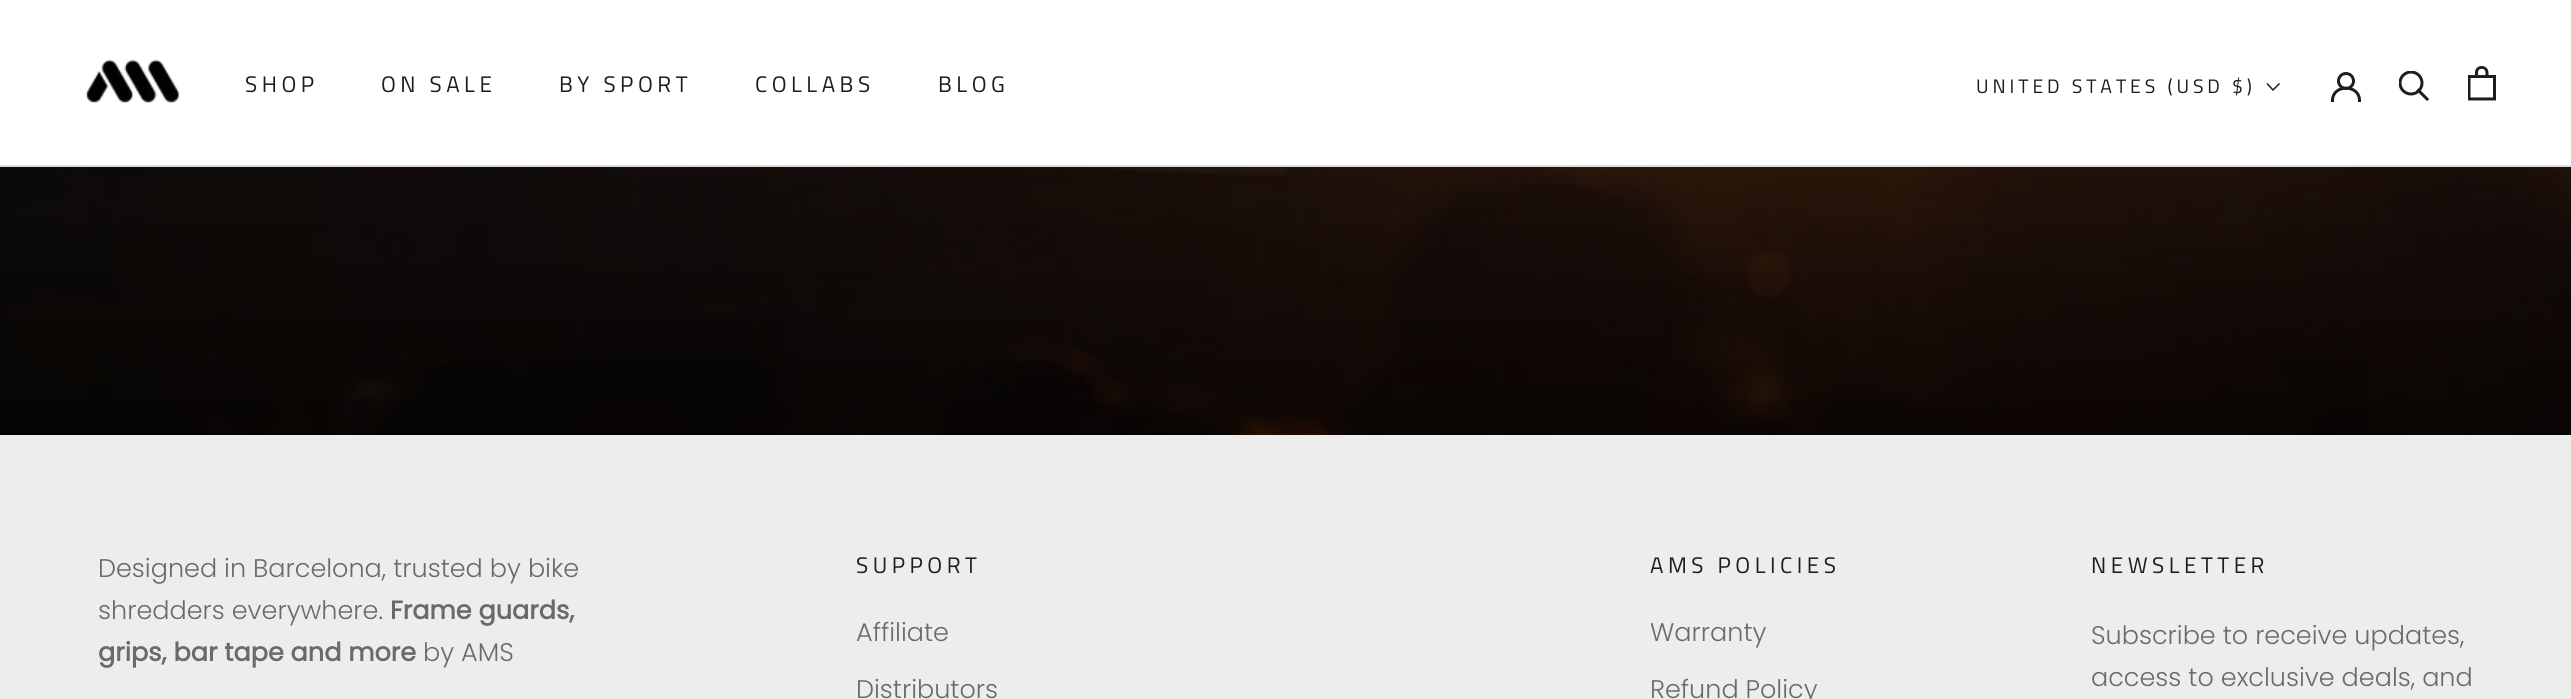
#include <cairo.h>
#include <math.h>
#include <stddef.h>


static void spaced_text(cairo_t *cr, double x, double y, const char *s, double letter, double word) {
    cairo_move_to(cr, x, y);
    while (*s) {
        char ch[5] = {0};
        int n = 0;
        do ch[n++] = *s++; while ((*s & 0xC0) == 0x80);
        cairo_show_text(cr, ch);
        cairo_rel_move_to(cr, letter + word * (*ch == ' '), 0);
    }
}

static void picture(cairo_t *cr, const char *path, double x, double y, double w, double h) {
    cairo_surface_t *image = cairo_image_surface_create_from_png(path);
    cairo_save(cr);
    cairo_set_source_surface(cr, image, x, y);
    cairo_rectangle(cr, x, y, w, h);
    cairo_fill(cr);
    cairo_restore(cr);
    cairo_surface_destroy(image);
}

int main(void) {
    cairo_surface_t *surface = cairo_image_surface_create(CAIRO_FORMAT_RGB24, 2571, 699);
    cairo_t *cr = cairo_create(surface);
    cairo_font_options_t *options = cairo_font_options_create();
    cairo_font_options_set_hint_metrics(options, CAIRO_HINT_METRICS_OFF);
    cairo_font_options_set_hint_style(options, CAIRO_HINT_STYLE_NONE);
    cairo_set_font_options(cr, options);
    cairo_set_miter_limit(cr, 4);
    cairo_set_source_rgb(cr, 0.929, 0.929, 0.929);
    cairo_paint(cr);
    cairo_set_source_rgb(cr, 1, 1, 1);
    cairo_rectangle(cr, 0, 0, 2571, 165);
    cairo_fill(cr);
    cairo_set_source_rgb(cr, 0.867, 0.867, 0.867);
    cairo_rectangle(cr, 0, 165, 2571, 2);
    cairo_fill(cr);
    picture(cr, "img1.png", 85, 59, 95, 44);
    cairo_select_font_face(cr, "Titillium Web", CAIRO_FONT_SLANT_NORMAL, CAIRO_FONT_WEIGHT_NORMAL);
    cairo_set_font_size(cr, 22.5);
    cairo_set_source_rgb(cr, 0.114, 0.114, 0.106);
    spaced_text(cr, 245, 92, "SHOP", 4.5, 0);
    spaced_text(cr, 381, 92, "ON SALE", 4.5, 0);
    spaced_text(cr, 559, 92, "BY SPORT", 4.5, 0);
    spaced_text(cr, 755, 92, "COLLABS", 4.5, 0);
    spaced_text(cr, 938, 92, "BLOG", 4.5, 0);
    cairo_set_font_size(cr, 19.5);
    spaced_text(cr, 1976, 93, "UNITED STATES (USD $)", 3.9, 0);
    cairo_new_path(cr);
    cairo_move_to(cr, 2279, 84);
    cairo_line_to(cr, 2273, 90);
    cairo_line_to(cr, 2267.5, 84);
    cairo_set_line_width(cr, 1.5);
    cairo_set_line_cap(cr, CAIRO_LINE_CAP_SQUARE);
    cairo_stroke(cr);
    cairo_new_path(cr);
    cairo_move_to(cr, 2332.5, 100.5);
    cairo_curve_to(cr, 2332.5, 84, 2359.5, 84, 2359.5, 100.5);
    cairo_set_line_width(cr, 3);
    cairo_stroke(cr);
    cairo_arc(cr, 2346, 81, 7.5, 0, 2 * M_PI);
    cairo_set_line_cap(cr, CAIRO_LINE_CAP_BUTT);
    cairo_stroke(cr);
    cairo_new_path(cr);
    cairo_move_to(cr, 2427, 99);
    cairo_line_to(cr, 2418.5, 90.5);
    cairo_set_line_cap(cr, CAIRO_LINE_CAP_SQUARE);
    cairo_stroke(cr);
    cairo_save(cr);
    cairo_rectangle(cr, 2399, 71, 31, 31);
    cairo_clip(cr);
    cairo_arc(cr, 2411, 83, 11, 0, 2 * M_PI);
    cairo_set_line_cap(cr, CAIRO_LINE_CAP_BUTT);
    cairo_stroke(cr);
    cairo_restore(cr);
    picture(cr, "img2.png", 2468, 66, 28, 35);
    picture(cr, "img3.png", 0, 167, 2571, 268);
    cairo_select_font_face(cr, "Poppins Light", CAIRO_FONT_SLANT_NORMAL, CAIRO_FONT_WEIGHT_NORMAL);
    cairo_set_font_size(cr, 25.5);
    cairo_set_source_rgb(cr, 0.416, 0.416, 0.416);
    cairo_move_to(cr, 98, 577);
    cairo_show_text(cr, "Designed in Barcelona, trusted by bike");
    cairo_move_to(cr, 98, 619);
    cairo_show_text(cr, "shredders everywhere.");
    cairo_select_font_face(cr, "Poppins", CAIRO_FONT_SLANT_NORMAL, CAIRO_FONT_WEIGHT_BOLD);
    cairo_move_to(cr, 390, 619);
    cairo_show_text(cr, "Frame guards,");
    cairo_move_to(cr, 98, 661);
    cairo_show_text(cr, "grips, bar tape and more");
    cairo_select_font_face(cr, "Poppins Light", CAIRO_FONT_SLANT_NORMAL, CAIRO_FONT_WEIGHT_NORMAL);
    cairo_move_to(cr, 423, 661);
    cairo_show_text(cr, "by AMS");
    cairo_select_font_face(cr, "Titillium Web", CAIRO_FONT_SLANT_NORMAL, CAIRO_FONT_WEIGHT_NORMAL);
    cairo_set_font_size(cr, 22.5);
    cairo_set_source_rgb(cr, 0.114, 0.114, 0.106);
    spaced_text(cr, 856, 573, "SUPPORT", 4.5, 0);
    cairo_select_font_face(cr, "Poppins Light", CAIRO_FONT_SLANT_NORMAL, CAIRO_FONT_WEIGHT_NORMAL);
    cairo_set_font_size(cr, 25.5);
    cairo_set_source_rgb(cr, 0.416, 0.416, 0.416);
    cairo_move_to(cr, 856, 641);
    cairo_show_text(cr, "Affiliate");
    cairo_move_to(cr, 856, 698);
    cairo_show_text(cr, "Distributors");
    cairo_select_font_face(cr, "Titillium Web", CAIRO_FONT_SLANT_NORMAL, CAIRO_FONT_WEIGHT_NORMAL);
    cairo_set_font_size(cr, 22.5);
    cairo_set_source_rgb(cr, 0.114, 0.114, 0.106);
    spaced_text(cr, 1650, 573, "AMS POLICIES", 4.5, 0);
    cairo_select_font_face(cr, "Poppins Light", CAIRO_FONT_SLANT_NORMAL, CAIRO_FONT_WEIGHT_NORMAL);
    cairo_set_font_size(cr, 25.5);
    cairo_set_source_rgb(cr, 0.416, 0.416, 0.416);
    cairo_move_to(cr, 1650, 641);
    cairo_show_text(cr, "Warranty");
    cairo_move_to(cr, 1650, 698);
    cairo_show_text(cr, "Refund Policy");
    cairo_select_font_face(cr, "Titillium Web", CAIRO_FONT_SLANT_NORMAL, CAIRO_FONT_WEIGHT_NORMAL);
    cairo_set_font_size(cr, 22.5);
    cairo_set_source_rgb(cr, 0.114, 0.114, 0.106);
    spaced_text(cr, 2091, 573, "NEWSLETTER", 4.5, 0);
    cairo_select_font_face(cr, "Poppins Light", CAIRO_FONT_SLANT_NORMAL, CAIRO_FONT_WEIGHT_NORMAL);
    cairo_set_font_size(cr, 25.5);
    cairo_set_source_rgb(cr, 0.416, 0.416, 0.416);
    cairo_move_to(cr, 2091, 644);
    cairo_show_text(cr, "Subscribe to receive updates,");
    cairo_move_to(cr, 2091, 686);
    cairo_show_text(cr, "access to exclusive deals, and");
    cairo_surface_write_to_png(surface, "page.png");
    cairo_font_options_destroy(options);
    cairo_destroy(cr);
    cairo_surface_destroy(surface);
    return 0;
}
